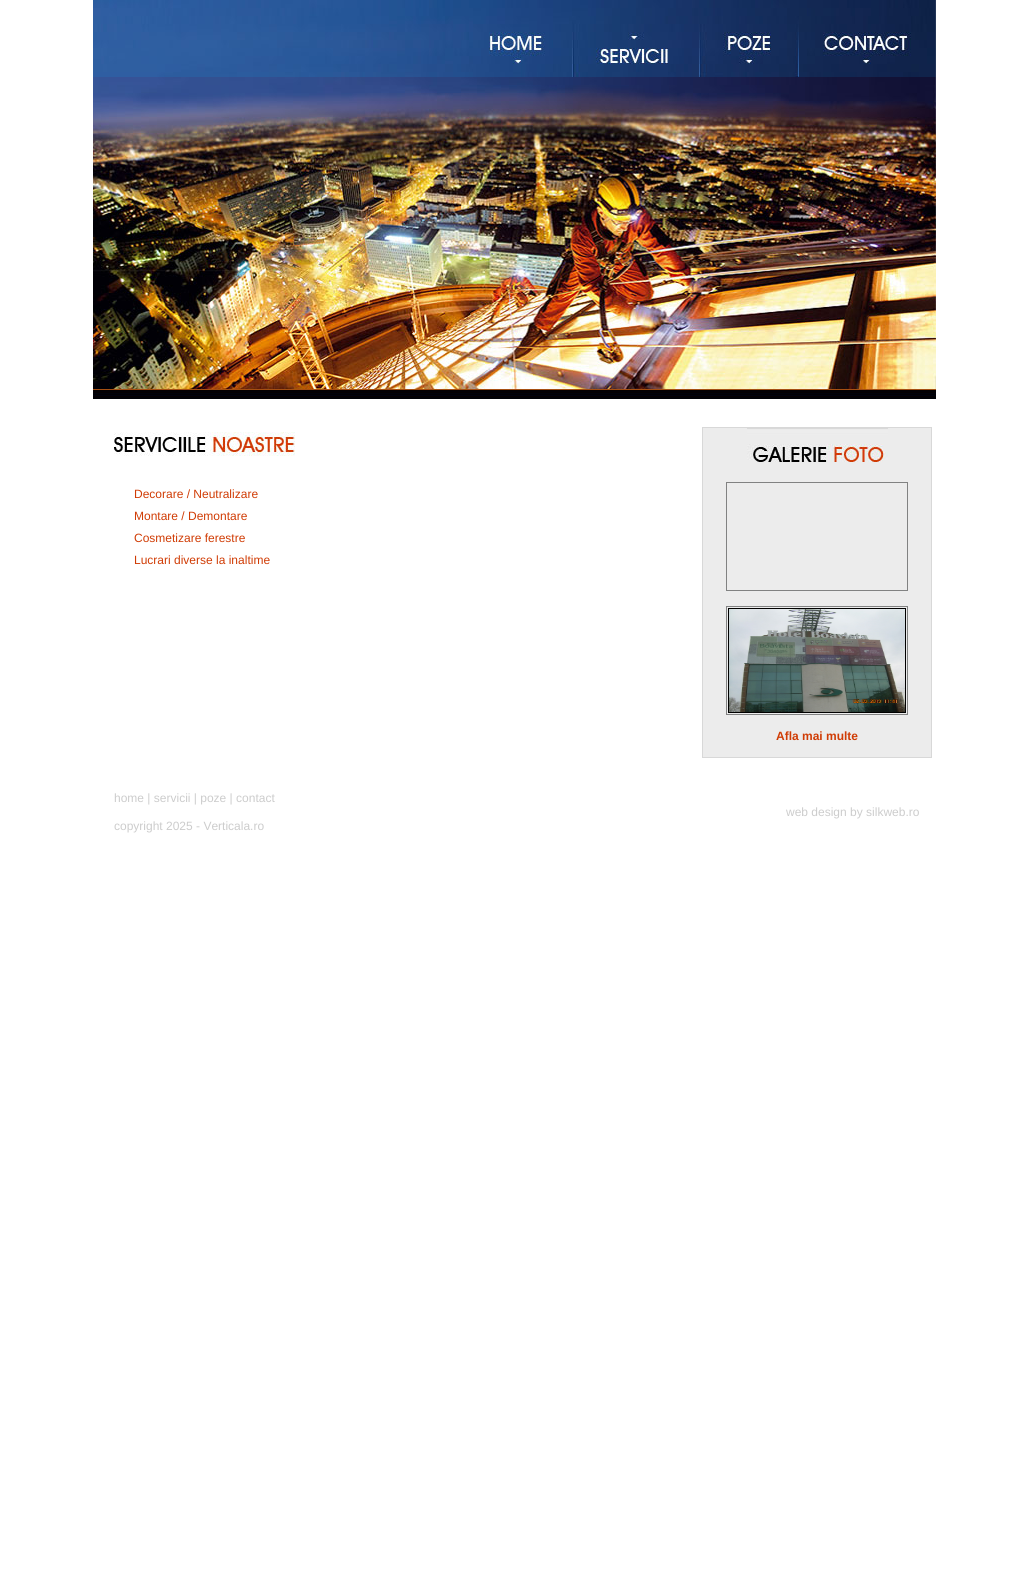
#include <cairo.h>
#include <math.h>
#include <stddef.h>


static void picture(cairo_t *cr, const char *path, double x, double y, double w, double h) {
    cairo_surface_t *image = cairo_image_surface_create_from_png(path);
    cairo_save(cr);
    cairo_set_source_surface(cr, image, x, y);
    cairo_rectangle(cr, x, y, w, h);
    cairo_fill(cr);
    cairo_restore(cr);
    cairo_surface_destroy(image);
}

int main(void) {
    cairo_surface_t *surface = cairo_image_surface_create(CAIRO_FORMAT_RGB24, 1028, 1585);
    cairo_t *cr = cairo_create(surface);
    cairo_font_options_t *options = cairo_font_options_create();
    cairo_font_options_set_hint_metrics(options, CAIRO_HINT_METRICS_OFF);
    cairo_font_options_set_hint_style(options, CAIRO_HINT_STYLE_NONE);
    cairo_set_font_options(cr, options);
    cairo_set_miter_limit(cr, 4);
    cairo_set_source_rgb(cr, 1, 1, 1);
    cairo_paint(cr);
    picture(cr, "img1.png", 93, 0, 380, 77);
    picture(cr, "img2.png", 473, 0, 99, 77);
    picture(cr, "img3.png", 572, 0, 127, 77);
    picture(cr, "img4.png", 699, 0, 100, 77);
    picture(cr, "img5.png", 799, 0, 137, 77);
    picture(cr, "img6.png", 93, 77, 843, 322);
    picture(cr, "img7.png", 114, 432, 181, 24);
    cairo_select_font_face(cr, "Liberation Sans", CAIRO_FONT_SLANT_NORMAL, CAIRO_FONT_WEIGHT_NORMAL);
    cairo_set_font_size(cr, 12);
    cairo_set_source_rgb(cr, 0.816, 0.235, 0.02);
    cairo_move_to(cr, 134, 498);
    cairo_show_text(cr, "Decorare / Neutralizare");
    cairo_move_to(cr, 134, 520);
    cairo_show_text(cr, "Montare / Demontare");
    cairo_move_to(cr, 134, 542);
    cairo_show_text(cr, "Cosmetizare ferestre");
    cairo_move_to(cr, 134, 564);
    cairo_show_text(cr, "Lucrari diverse la inaltime");
    cairo_set_source_rgb(cr, 0.925, 0.925, 0.925);
    cairo_rectangle(cr, 702.5, 427.5, 229, 330);
    cairo_fill_preserve(cr);
    cairo_set_source_rgb(cr, 0.847, 0.847, 0.847);
    cairo_set_line_width(cr, 1);
    cairo_stroke(cr);
    picture(cr, "img8.png", 747, 428, 141, 34);
    cairo_rectangle(cr, 726.5, 482.5, 181, 108);
    cairo_set_source_rgb(cr, 0.506, 0.51, 0.51);
    cairo_stroke(cr);
    cairo_rectangle(cr, 726.5, 606.5, 181, 108);
    cairo_stroke(cr);
    cairo_rectangle(cr, 728.5, 608.5, 177, 104);
    cairo_set_source_rgb(cr, 0, 0, 0);
    cairo_stroke(cr);
    picture(cr, "img9.png", 729, 609, 176, 103);
    cairo_select_font_face(cr, "Liberation Sans", CAIRO_FONT_SLANT_NORMAL, CAIRO_FONT_WEIGHT_BOLD);
    cairo_set_source_rgb(cr, 0.816, 0.235, 0.02);
    cairo_move_to(cr, 776, 740);
    cairo_show_text(cr, "Afla mai multe");
    cairo_select_font_face(cr, "Liberation Sans", CAIRO_FONT_SLANT_NORMAL, CAIRO_FONT_WEIGHT_NORMAL);
    cairo_set_source_rgb(cr, 0.8, 0.8, 0.8);
    cairo_move_to(cr, 114, 802);
    cairo_show_text(cr, "home | servicii | poze | contact");
    cairo_move_to(cr, 786, 816);
    cairo_show_text(cr, "web design by silkweb.ro");
    cairo_move_to(cr, 114, 830);
    cairo_show_text(cr, "copyright 2025 - Verticala.ro");
    cairo_surface_write_to_png(surface, "page.png");
    cairo_font_options_destroy(options);
    cairo_destroy(cr);
    cairo_surface_destroy(surface);
    return 0;
}
